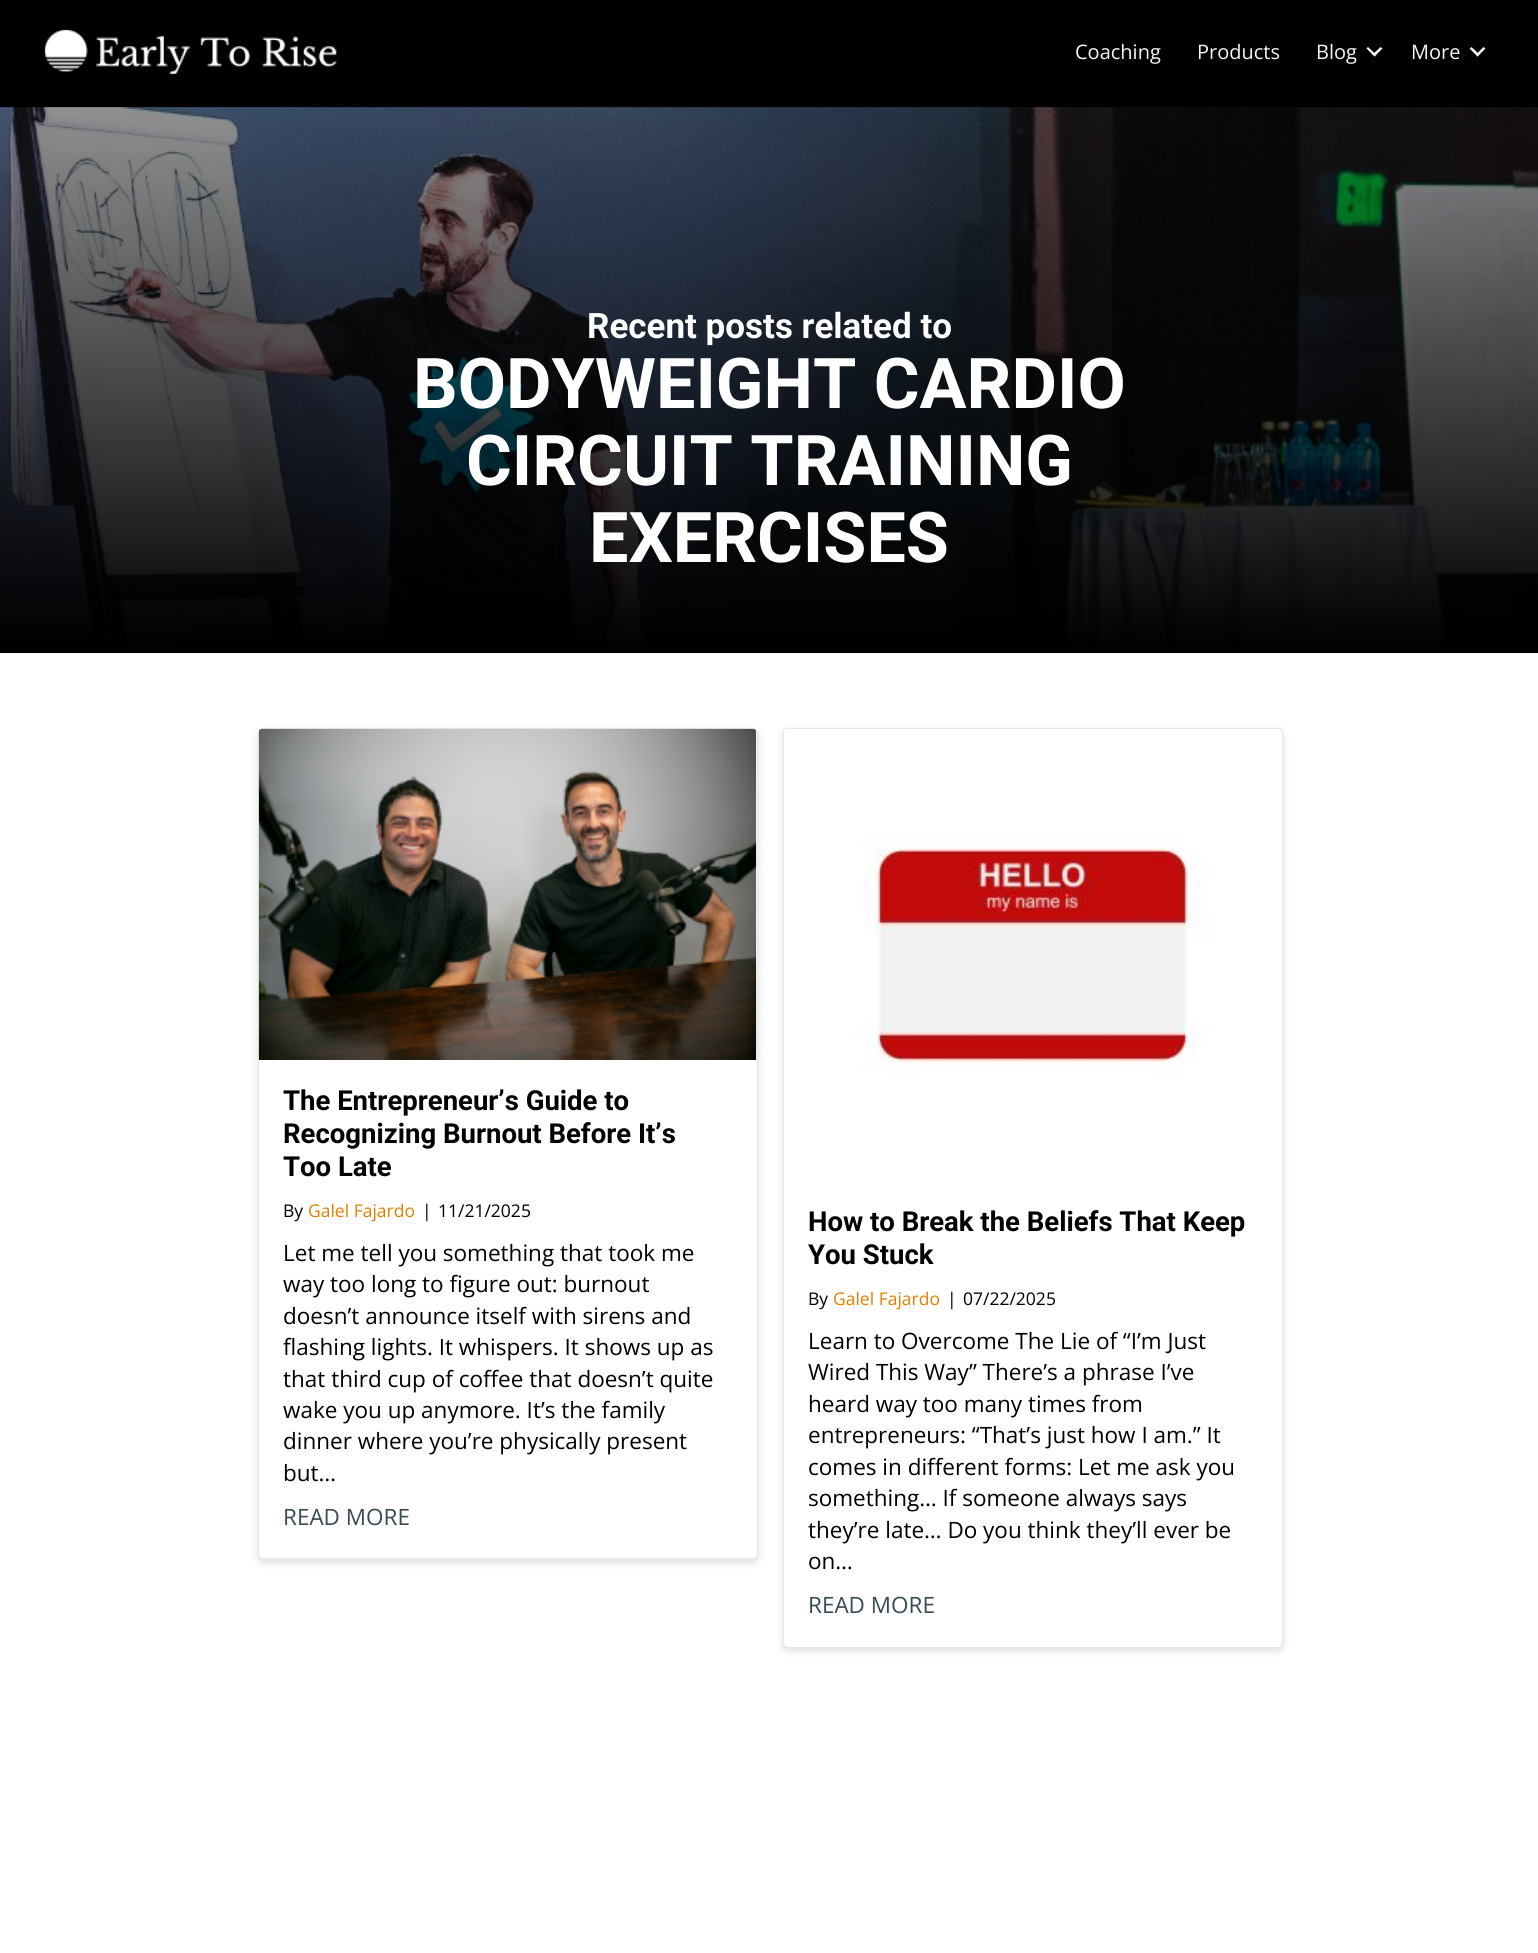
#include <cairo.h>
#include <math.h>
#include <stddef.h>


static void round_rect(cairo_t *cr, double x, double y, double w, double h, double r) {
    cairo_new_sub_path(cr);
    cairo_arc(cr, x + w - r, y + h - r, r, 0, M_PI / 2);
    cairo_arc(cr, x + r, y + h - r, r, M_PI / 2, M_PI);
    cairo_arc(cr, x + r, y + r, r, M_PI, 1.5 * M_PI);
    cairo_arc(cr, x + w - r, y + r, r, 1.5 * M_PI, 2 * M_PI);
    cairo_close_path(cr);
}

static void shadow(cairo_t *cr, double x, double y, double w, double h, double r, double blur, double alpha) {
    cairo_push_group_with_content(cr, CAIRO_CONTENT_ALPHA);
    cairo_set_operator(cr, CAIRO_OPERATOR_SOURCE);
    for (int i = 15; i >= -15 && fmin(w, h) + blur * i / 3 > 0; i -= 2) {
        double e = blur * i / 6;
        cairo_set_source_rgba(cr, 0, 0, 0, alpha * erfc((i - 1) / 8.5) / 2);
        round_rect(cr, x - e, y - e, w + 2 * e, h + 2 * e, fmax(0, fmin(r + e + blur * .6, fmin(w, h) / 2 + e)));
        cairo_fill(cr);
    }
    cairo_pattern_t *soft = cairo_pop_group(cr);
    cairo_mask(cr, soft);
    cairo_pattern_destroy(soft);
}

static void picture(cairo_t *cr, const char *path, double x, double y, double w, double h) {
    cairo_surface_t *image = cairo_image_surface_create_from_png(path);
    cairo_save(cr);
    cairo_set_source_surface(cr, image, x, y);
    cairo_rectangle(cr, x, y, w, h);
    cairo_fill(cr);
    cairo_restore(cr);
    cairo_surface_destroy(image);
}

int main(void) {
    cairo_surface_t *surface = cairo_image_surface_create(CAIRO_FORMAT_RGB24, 1538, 1953);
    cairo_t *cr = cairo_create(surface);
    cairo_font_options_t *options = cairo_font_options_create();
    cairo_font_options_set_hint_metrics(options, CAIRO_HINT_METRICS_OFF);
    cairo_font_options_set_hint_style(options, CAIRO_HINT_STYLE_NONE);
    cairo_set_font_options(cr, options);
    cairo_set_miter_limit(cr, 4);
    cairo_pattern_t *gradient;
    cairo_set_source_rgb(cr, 1, 1, 1);
    cairo_paint(cr);
    cairo_set_source_rgb(cr, 0, 0, 0);
    cairo_rectangle(cr, 0, 0, 1538, 108);
    cairo_fill(cr);
    picture(cr, "img1.png", 44, 29, 293, 45);
    cairo_select_font_face(cr, "Open Sans", CAIRO_FONT_SLANT_NORMAL, CAIRO_FONT_WEIGHT_NORMAL);
    cairo_set_font_size(cr, 20);
    cairo_set_source_rgb(cr, 0.961, 0.961, 0.961);
    cairo_move_to(cr, 1075, 59);
    cairo_show_text(cr, "Coaching");
    cairo_move_to(cr, 1197, 59);
    cairo_show_text(cr, "Products");
    cairo_move_to(cr, 1316, 59);
    cairo_show_text(cr, "Blog");
    cairo_new_path(cr);
    cairo_move_to(cr, 1380.5, 47);
    cairo_line_to(cr, 1382.5, 48.5);
    cairo_line_to(cr, 1374.5, 56.5);
    cairo_line_to(cr, 1372.5, 54.5);
    cairo_close_path(cr);
    cairo_fill(cr);
    cairo_new_path(cr);
    cairo_move_to(cr, 1368, 47);
    cairo_line_to(cr, 1376, 54.5);
    cairo_line_to(cr, 1374.5, 56.5);
    cairo_line_to(cr, 1366.5, 48.5);
    cairo_close_path(cr);
    cairo_fill(cr);
    cairo_move_to(cr, 1411, 59);
    cairo_show_text(cr, "More");
    cairo_new_path(cr);
    cairo_move_to(cr, 1483.5, 47);
    cairo_line_to(cr, 1485.5, 48.5);
    cairo_line_to(cr, 1477.5, 56.5);
    cairo_line_to(cr, 1476, 54.5);
    cairo_close_path(cr);
    cairo_fill(cr);
    cairo_new_path(cr);
    cairo_move_to(cr, 1471.5, 47);
    cairo_line_to(cr, 1479.5, 54.5);
    cairo_line_to(cr, 1477.5, 56.5);
    cairo_line_to(cr, 1469.5, 48.5);
    cairo_close_path(cr);
    cairo_fill(cr);
    picture(cr, "img2.png", 0, 107, 1538, 540);
    gradient = cairo_pattern_create_linear(769, 653, 769, 108);
    cairo_pattern_add_color_stop_rgba(gradient, 0, 0, 0, 0, 1);
    cairo_pattern_add_color_stop_rgba(gradient, 1, 0, 0, 0, 0.43);
    cairo_set_source(cr, gradient);
    cairo_pattern_destroy(gradient);
    cairo_rectangle(cr, 0, 108, 1538, 545);
    cairo_fill(cr);
    cairo_select_font_face(cr, "Roboto", CAIRO_FONT_SLANT_NORMAL, CAIRO_FONT_WEIGHT_BOLD);
    cairo_set_font_size(cr, 35);
    cairo_set_source_rgb(cr, 1, 1, 1);
    cairo_move_to(cr, 587, 338);
    cairo_show_text(cr, "Recent posts related to");
    cairo_set_font_size(cr, 70);
    cairo_move_to(cr, 413, 408);
    cairo_show_text(cr, "BODYWEIGHT CARDIO");
    cairo_move_to(cr, 466, 485);
    cairo_show_text(cr, "CIRCUIT TRAINING");
    cairo_move_to(cr, 589, 562);
    cairo_show_text(cr, "EXERCISES");
    cairo_set_source_rgb(cr, 0, 0, 0);
    shadow(cr, 258, 731, 500, 832, 5, 4, 0.13);
    cairo_set_source_rgb(cr, 1, 1, 1);
    round_rect(cr, 258.5, 728.5, 499, 830, 4.5);
    cairo_fill_preserve(cr);
    cairo_set_source_rgb(cr, 0.902, 0.902, 0.902);
    cairo_set_line_width(cr, 1);
    cairo_stroke(cr);
    picture(cr, "img3.png", 258, 728, 499, 332);
    cairo_set_font_size(cr, 27.5);
    cairo_set_source_rgb(cr, 0, 0, 0);
    cairo_move_to(cr, 283, 1110);
    cairo_show_text(cr, "The Entrepreneur’s Guide to");
    cairo_move_to(cr, 283, 1143);
    cairo_show_text(cr, "Recognizing Burnout Before It’s");
    cairo_move_to(cr, 283, 1176);
    cairo_show_text(cr, "Too Late");
    cairo_select_font_face(cr, "Open Sans", CAIRO_FONT_SLANT_NORMAL, CAIRO_FONT_WEIGHT_NORMAL);
    cairo_set_font_size(cr, 17.5);
    cairo_move_to(cr, 283, 1217);
    cairo_show_text(cr, "By");
    cairo_set_source_rgb(cr, 0.898, 0.494, 0);
    cairo_move_to(cr, 308, 1217);
    cairo_show_text(cr, "Galel Fajardo");
    cairo_set_source_rgb(cr, 0, 0, 0);
    cairo_move_to(cr, 422, 1217);
    cairo_show_text(cr, "|");
    cairo_move_to(cr, 438, 1217);
    cairo_show_text(cr, "11/21/2025");
    cairo_set_font_size(cr, 22.5);
    cairo_move_to(cr, 283, 1261);
    cairo_show_text(cr, "Let me tell you something that took me");
    cairo_move_to(cr, 283, 1292);
    cairo_show_text(cr, "way too long to figure out: burnout");
    cairo_move_to(cr, 283, 1324);
    cairo_show_text(cr, "doesn’t announce itself with sirens and");
    cairo_move_to(cr, 283, 1355);
    cairo_show_text(cr, "flashing lights. It whispers. It shows up as");
    cairo_move_to(cr, 283, 1387);
    cairo_show_text(cr, "that third cup of coffee that doesn’t quite");
    cairo_move_to(cr, 283, 1418);
    cairo_show_text(cr, "wake you up anymore. It’s the family");
    cairo_move_to(cr, 283, 1449);
    cairo_show_text(cr, "dinner where you’re physically present");
    cairo_move_to(cr, 283, 1481);
    cairo_show_text(cr, "but…");
    cairo_set_source_rgb(cr, 0.227, 0.29, 0.325);
    cairo_move_to(cr, 283, 1525);
    cairo_show_text(cr, "READ MORE");
    cairo_set_source_rgb(cr, 0, 0, 0);
    shadow(cr, 783, 731, 500, 920, 5, 4, 0.13);
    cairo_set_source_rgb(cr, 1, 1, 1);
    round_rect(cr, 783.5, 728.5, 499, 919, 4.5);
    cairo_fill_preserve(cr);
    cairo_set_source_rgb(cr, 0.902, 0.902, 0.902);
    cairo_stroke(cr);
    picture(cr, "img4.png", 784, 729, 496, 345);
    cairo_select_font_face(cr, "Roboto", CAIRO_FONT_SLANT_NORMAL, CAIRO_FONT_WEIGHT_BOLD);
    cairo_set_font_size(cr, 27.5);
    cairo_set_source_rgb(cr, 0, 0, 0);
    cairo_move_to(cr, 808, 1231);
    cairo_show_text(cr, "How to Break the Beliefs That Keep");
    cairo_move_to(cr, 808, 1264);
    cairo_show_text(cr, "You Stuck");
    cairo_select_font_face(cr, "Open Sans", CAIRO_FONT_SLANT_NORMAL, CAIRO_FONT_WEIGHT_NORMAL);
    cairo_set_font_size(cr, 17.5);
    cairo_move_to(cr, 808, 1305);
    cairo_show_text(cr, "By");
    cairo_set_source_rgb(cr, 0.898, 0.494, 0);
    cairo_move_to(cr, 833, 1305);
    cairo_show_text(cr, "Galel Fajardo");
    cairo_set_source_rgb(cr, 0, 0, 0);
    cairo_move_to(cr, 947, 1305);
    cairo_show_text(cr, "|");
    cairo_move_to(cr, 963, 1305);
    cairo_show_text(cr, "07/22/2025");
    cairo_set_font_size(cr, 22.5);
    cairo_move_to(cr, 808, 1349);
    cairo_show_text(cr, "Learn to Overcome The Lie of “I’m Just");
    cairo_move_to(cr, 808, 1380);
    cairo_show_text(cr, "Wired This Way” There’s a phrase I’ve");
    cairo_move_to(cr, 808, 1412);
    cairo_show_text(cr, "heard way too many times from");
    cairo_move_to(cr, 808, 1443);
    cairo_show_text(cr, "entrepreneurs: “That’s just how I am.” It");
    cairo_move_to(cr, 808, 1475);
    cairo_show_text(cr, "comes in different forms: Let me ask you");
    cairo_move_to(cr, 808, 1506);
    cairo_show_text(cr, "something… If someone always says");
    cairo_move_to(cr, 808, 1538);
    cairo_show_text(cr, "they’re late… Do you think they’ll ever be");
    cairo_move_to(cr, 808, 1569);
    cairo_show_text(cr, "on…");
    cairo_set_source_rgb(cr, 0.227, 0.29, 0.325);
    cairo_move_to(cr, 808, 1613);
    cairo_show_text(cr, "READ MORE");
    cairo_surface_write_to_png(surface, "page.png");
    cairo_font_options_destroy(options);
    cairo_destroy(cr);
    cairo_surface_destroy(surface);
    return 0;
}
